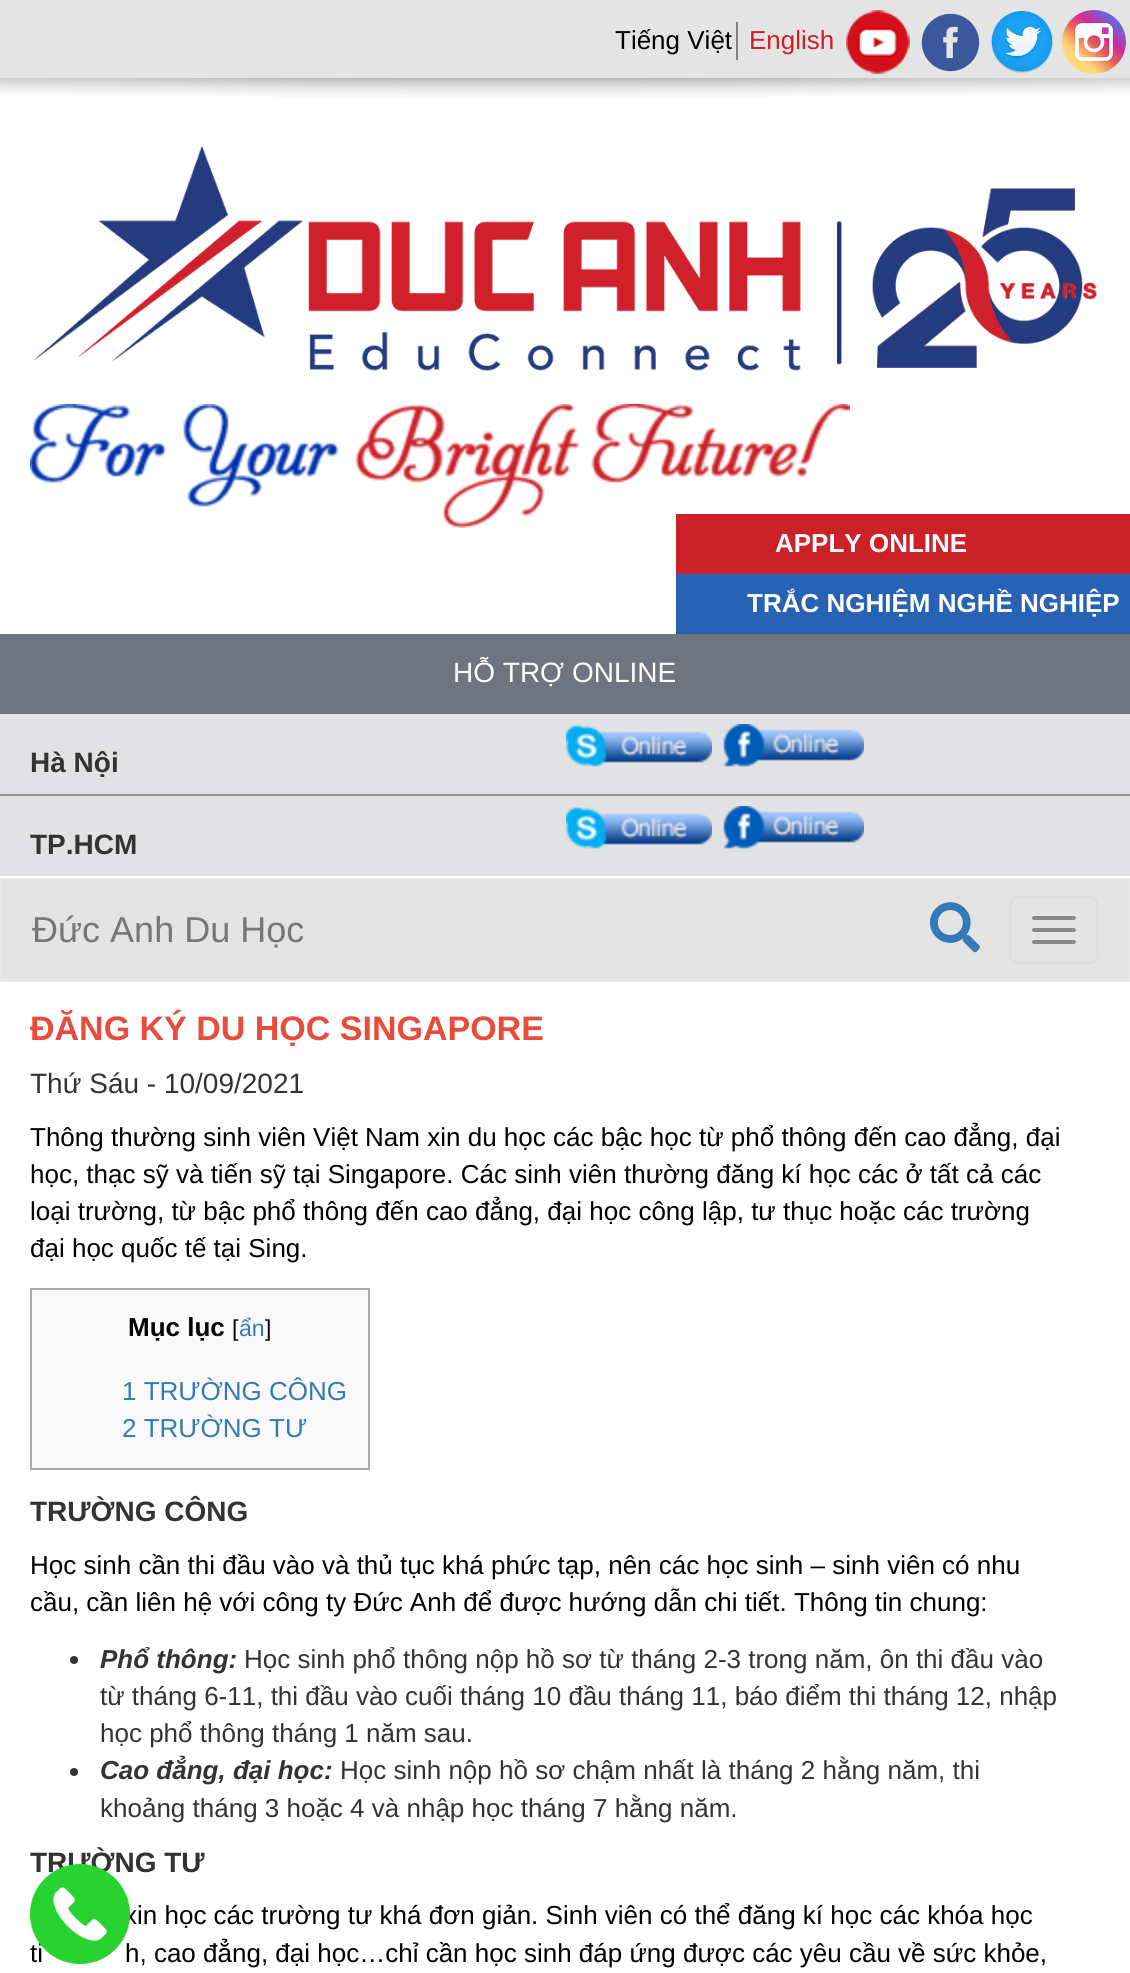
#include <cairo.h>
#include <math.h>
#include <stddef.h>


static void round_rect(cairo_t *cr, double x, double y, double w, double h, double r) {
    cairo_new_sub_path(cr);
    cairo_arc(cr, x + w - r, y + h - r, r, 0, M_PI / 2);
    cairo_arc(cr, x + r, y + h - r, r, M_PI / 2, M_PI);
    cairo_arc(cr, x + r, y + r, r, M_PI, 1.5 * M_PI);
    cairo_arc(cr, x + w - r, y + r, r, 1.5 * M_PI, 2 * M_PI);
    cairo_close_path(cr);
}

static void picture(cairo_t *cr, const char *path, double x, double y, double w, double h) {
    cairo_surface_t *image = cairo_image_surface_create_from_png(path);
    cairo_save(cr);
    cairo_set_source_surface(cr, image, x, y);
    cairo_rectangle(cr, x, y, w, h);
    cairo_fill(cr);
    cairo_restore(cr);
    cairo_surface_destroy(image);
}

int main(void) {
    cairo_surface_t *surface = cairo_image_surface_create(CAIRO_FORMAT_RGB24, 1130, 1973);
    cairo_t *cr = cairo_create(surface);
    cairo_font_options_t *options = cairo_font_options_create();
    cairo_font_options_set_hint_metrics(options, CAIRO_HINT_METRICS_OFF);
    cairo_font_options_set_hint_style(options, CAIRO_HINT_STYLE_NONE);
    cairo_set_font_options(cr, options);
    cairo_set_miter_limit(cr, 4);
    cairo_set_source_rgb(cr, 1, 1, 1);
    cairo_paint(cr);
    cairo_set_source_rgb(cr, 0.894, 0.894, 0.894);
    cairo_rectangle(cr, 0, 0, 1130, 78);
    cairo_fill(cr);
    cairo_set_source_rgb(cr, 0.506, 0.506, 0.506);
    cairo_rectangle(cr, 736, 22, 2, 38);
    cairo_fill(cr);
    cairo_select_font_face(cr, "Liberation Sans", CAIRO_FONT_SLANT_NORMAL, CAIRO_FONT_WEIGHT_NORMAL);
    cairo_set_font_size(cr, 26);
    cairo_set_source_rgb(cr, 0, 0, 0);
    cairo_move_to(cr, 615, 49);
    cairo_show_text(cr, "Tiếng Việt");
    cairo_set_source_rgb(cr, 0.796, 0.129, 0.157);
    cairo_move_to(cr, 749, 49);
    cairo_show_text(cr, "English");
    picture(cr, "img1.png", 846, 10, 64, 64);
    picture(cr, "img2.png", 921, 13, 59, 59);
    picture(cr, "img3.png", 991, 10, 62, 63);
    picture(cr, "img4.png", 1062, 10, 64, 64);
    picture(cr, "img5.png", 0, 78, 1130, 19);
    picture(cr, "img6.png", 33, 146, 1064, 225);
    picture(cr, "img7.png", 30, 404, 820, 124);
    cairo_rectangle(cr, 676, 514, 454, 60);
    cairo_fill(cr);
    cairo_select_font_face(cr, "Liberation Sans", CAIRO_FONT_SLANT_NORMAL, CAIRO_FONT_WEIGHT_BOLD);
    cairo_set_source_rgb(cr, 1, 1, 1);
    cairo_move_to(cr, 775, 552);
    cairo_show_text(cr, "APPLY ONLINE");
    cairo_set_source_rgb(cr, 0.161, 0.38, 0.71);
    cairo_rectangle(cr, 676, 574, 454, 60);
    cairo_fill(cr);
    cairo_set_source_rgb(cr, 1, 1, 1);
    cairo_move_to(cr, 747, 612);
    cairo_show_text(cr, "TRẮC NGHIỆM NGHỀ NGHIỆP");
    cairo_set_source_rgb(cr, 0.427, 0.459, 0.502);
    cairo_rectangle(cr, 0, 634, 1130, 80);
    cairo_fill(cr);
    cairo_select_font_face(cr, "Liberation Sans", CAIRO_FONT_SLANT_NORMAL, CAIRO_FONT_WEIGHT_NORMAL);
    cairo_set_font_size(cr, 28);
    cairo_set_source_rgb(cr, 1, 1, 1);
    cairo_move_to(cr, 453, 682);
    cairo_show_text(cr, "HỖ TRỢ ONLINE");
    cairo_set_source_rgb(cr, 0.886, 0.886, 0.894);
    cairo_rectangle(cr, 0, 714, 1130, 80);
    cairo_fill(cr);
    cairo_set_source_rgb(cr, 0.596, 0.596, 0.596);
    cairo_rectangle(cr, 0, 794, 1130, 2);
    cairo_fill(cr);
    cairo_select_font_face(cr, "Liberation Sans", CAIRO_FONT_SLANT_NORMAL, CAIRO_FONT_WEIGHT_BOLD);
    cairo_set_source_rgb(cr, 0.2, 0.2, 0.2);
    cairo_move_to(cr, 30, 772);
    cairo_show_text(cr, "Hà Nội");
    picture(cr, "img8.png", 566, 725, 146, 42);
    picture(cr, "img9.png", 723, 724, 141, 43);
    cairo_set_source_rgb(cr, 0.886, 0.886, 0.894);
    cairo_rectangle(cr, 0, 796, 1130, 80);
    cairo_fill(cr);
    cairo_set_source_rgb(cr, 0.2, 0.2, 0.2);
    cairo_move_to(cr, 30, 854);
    cairo_show_text(cr, "TP.HCM");
    picture(cr, "img8.png", 566, 807, 146, 42);
    picture(cr, "img9.png", 723, 806, 141, 43);
    cairo_set_source_rgb(cr, 0.894, 0.894, 0.894);
    cairo_rectangle(cr, 1, 879, 1128, 102);
    cairo_fill_preserve(cr);
    cairo_set_source_rgb(cr, 0.906, 0.906, 0.906);
    cairo_stroke(cr);
    cairo_select_font_face(cr, "Liberation Sans", CAIRO_FONT_SLANT_NORMAL, CAIRO_FONT_WEIGHT_NORMAL);
    cairo_set_font_size(cr, 36);
    cairo_set_source_rgb(cr, 0.467, 0.467, 0.467);
    cairo_move_to(cr, 32, 942);
    cairo_show_text(cr, "Đức Anh Du Học");
    round_rect(cr, 1011, 897, 86, 66, 7);
    cairo_set_source_rgb(cr, 0.867, 0.867, 0.867);
    cairo_stroke(cr);
    cairo_set_source_rgb(cr, 0.533, 0.533, 0.533);
    round_rect(cr, 1032, 916, 44, 4, 2);
    cairo_fill(cr);
    round_rect(cr, 1032, 928, 44, 4, 2);
    cairo_fill(cr);
    round_rect(cr, 1032, 940, 44, 4, 2);
    cairo_fill(cr);
    picture(cr, "img10.png", 930, 902, 50, 51);
    cairo_select_font_face(cr, "Liberation Sans", CAIRO_FONT_SLANT_NORMAL, CAIRO_FONT_WEIGHT_BOLD);
    cairo_set_font_size(cr, 34);
    cairo_set_source_rgb(cr, 0.906, 0.298, 0.235);
    cairo_move_to(cr, 30, 1040);
    cairo_show_text(cr, "ĐĂNG KÝ DU HỌC SINGAPORE");
    cairo_select_font_face(cr, "Liberation Sans", CAIRO_FONT_SLANT_NORMAL, CAIRO_FONT_WEIGHT_NORMAL);
    cairo_set_font_size(cr, 28);
    cairo_set_source_rgb(cr, 0.2, 0.2, 0.2);
    cairo_move_to(cr, 30, 1093);
    cairo_show_text(cr, "Thứ Sáu - 10/09/2021");
    cairo_set_font_size(cr, 26);
    cairo_set_source_rgb(cr, 0, 0, 0);
    cairo_move_to(cr, 30, 1146);
    cairo_show_text(cr, "Thông thường sinh viên Việt Nam xin du học các bậc học từ phổ thông đến cao đẳng, đại");
    cairo_move_to(cr, 30, 1183);
    cairo_show_text(cr, "học, thạc sỹ và tiến sỹ tại Singapore. Các sinh viên thường đăng kí học các ở tất cả các");
    cairo_move_to(cr, 30, 1220);
    cairo_show_text(cr, "loại trường, từ bậc phổ thông đến cao đẳng, đại học công lập, tư thục hoặc các trường");
    cairo_move_to(cr, 30, 1257);
    cairo_show_text(cr, "đại học quốc tế tại Sing.");
    cairo_set_source_rgb(cr, 0.976, 0.976, 0.976);
    cairo_rectangle(cr, 31, 1289, 338, 180);
    cairo_fill_preserve(cr);
    cairo_set_source_rgb(cr, 0.667, 0.667, 0.667);
    cairo_stroke(cr);
    cairo_select_font_face(cr, "Liberation Sans", CAIRO_FONT_SLANT_NORMAL, CAIRO_FONT_WEIGHT_BOLD);
    cairo_set_source_rgb(cr, 0, 0, 0);
    cairo_move_to(cr, 128, 1336);
    cairo_show_text(cr, "Mục lục");
    cairo_select_font_face(cr, "Liberation Sans", CAIRO_FONT_SLANT_NORMAL, CAIRO_FONT_WEIGHT_NORMAL);
    cairo_set_font_size(cr, 23);
    cairo_move_to(cr, 232, 1336);
    cairo_show_text(cr, "[");
    cairo_set_source_rgb(cr, 0.2, 0.478, 0.718);
    cairo_move_to(cr, 239, 1336);
    cairo_show_text(cr, "ẩn");
    cairo_set_source_rgb(cr, 0, 0, 0);
    cairo_move_to(cr, 265, 1336);
    cairo_show_text(cr, "]");
    cairo_set_font_size(cr, 26);
    cairo_set_source_rgb(cr, 0.2, 0.478, 0.718);
    cairo_move_to(cr, 122, 1400);
    cairo_show_text(cr, "1 TRƯỜNG CÔNG");
    cairo_move_to(cr, 122, 1437);
    cairo_show_text(cr, "2 TRƯỜNG TƯ");
    cairo_select_font_face(cr, "Liberation Sans", CAIRO_FONT_SLANT_NORMAL, CAIRO_FONT_WEIGHT_BOLD);
    cairo_set_font_size(cr, 28);
    cairo_set_source_rgb(cr, 0.2, 0.2, 0.2);
    cairo_move_to(cr, 30, 1521);
    cairo_show_text(cr, "TRƯỜNG CÔNG");
    cairo_select_font_face(cr, "Liberation Sans", CAIRO_FONT_SLANT_NORMAL, CAIRO_FONT_WEIGHT_NORMAL);
    cairo_set_font_size(cr, 26);
    cairo_set_source_rgb(cr, 0, 0, 0);
    cairo_move_to(cr, 30, 1574);
    cairo_show_text(cr, "Học sinh cần thi đầu vào và thủ tục khá phức tạp, nên các học sinh – sinh viên có nhu");
    cairo_move_to(cr, 30, 1611);
    cairo_show_text(cr, "cầu, cần liên hệ với công ty Đức Anh để được hướng dẫn chi tiết. Thông tin chung:");
    cairo_set_source_rgb(cr, 0.2, 0.2, 0.2);
    cairo_new_path(cr);
    cairo_arc(cr, 74, 1660, 4, 0, 2 * M_PI);
    cairo_fill(cr);
    cairo_select_font_face(cr, "Liberation Sans", CAIRO_FONT_SLANT_ITALIC, CAIRO_FONT_WEIGHT_BOLD);
    cairo_move_to(cr, 100, 1668);
    cairo_show_text(cr, "Phổ thông:");
    cairo_select_font_face(cr, "Liberation Sans", CAIRO_FONT_SLANT_NORMAL, CAIRO_FONT_WEIGHT_NORMAL);
    cairo_move_to(cr, 244, 1668);
    cairo_show_text(cr, "Học sinh phổ thông nộp hồ sơ từ tháng 2-3 trong năm, ôn thi đầu vào");
    cairo_move_to(cr, 100, 1705);
    cairo_show_text(cr, "từ tháng 6-11, thi đầu vào cuối tháng 10 đầu tháng 11, báo điểm thi tháng 12, nhập");
    cairo_move_to(cr, 100, 1742);
    cairo_show_text(cr, "học phổ thông tháng 1 năm sau.");
    cairo_new_path(cr);
    cairo_arc(cr, 74, 1772, 4, 0, 2 * M_PI);
    cairo_fill(cr);
    cairo_select_font_face(cr, "Liberation Sans", CAIRO_FONT_SLANT_ITALIC, CAIRO_FONT_WEIGHT_BOLD);
    cairo_move_to(cr, 100, 1779);
    cairo_show_text(cr, "Cao đẳng, đại học:");
    cairo_select_font_face(cr, "Liberation Sans", CAIRO_FONT_SLANT_NORMAL, CAIRO_FONT_WEIGHT_NORMAL);
    cairo_move_to(cr, 340, 1779);
    cairo_show_text(cr, "Học sinh nộp hồ sơ chậm nhất là tháng 2 hằng năm, thi");
    cairo_move_to(cr, 100, 1817);
    cairo_show_text(cr, "khoảng tháng 3 hoặc 4 và nhập học tháng 7 hằng năm.");
    cairo_select_font_face(cr, "Liberation Sans", CAIRO_FONT_SLANT_NORMAL, CAIRO_FONT_WEIGHT_BOLD);
    cairo_set_font_size(cr, 28);
    cairo_move_to(cr, 30, 1872);
    cairo_show_text(cr, "TRƯỜNG TƯ");
    cairo_select_font_face(cr, "Liberation Sans", CAIRO_FONT_SLANT_NORMAL, CAIRO_FONT_WEIGHT_NORMAL);
    cairo_set_font_size(cr, 26);
    cairo_set_source_rgb(cr, 0, 0, 0);
    cairo_move_to(cr, 124, 1924);
    cairo_show_text(cr, "xin học các trường tư khá đơn giản. Sinh viên có thể đăng kí học các khóa học");
    cairo_move_to(cr, 30, 1962);
    cairo_show_text(cr, "ti");
    cairo_move_to(cr, 125, 1962);
    cairo_show_text(cr, "h, cao đẳng, đại học…chỉ cần học sinh đáp ứng được các yêu cầu về sức khỏe,");
    picture(cr, "img11.png", 30, 1864, 100, 100);
    cairo_surface_write_to_png(surface, "page.png");
    cairo_font_options_destroy(options);
    cairo_destroy(cr);
    cairo_surface_destroy(surface);
    return 0;
}
